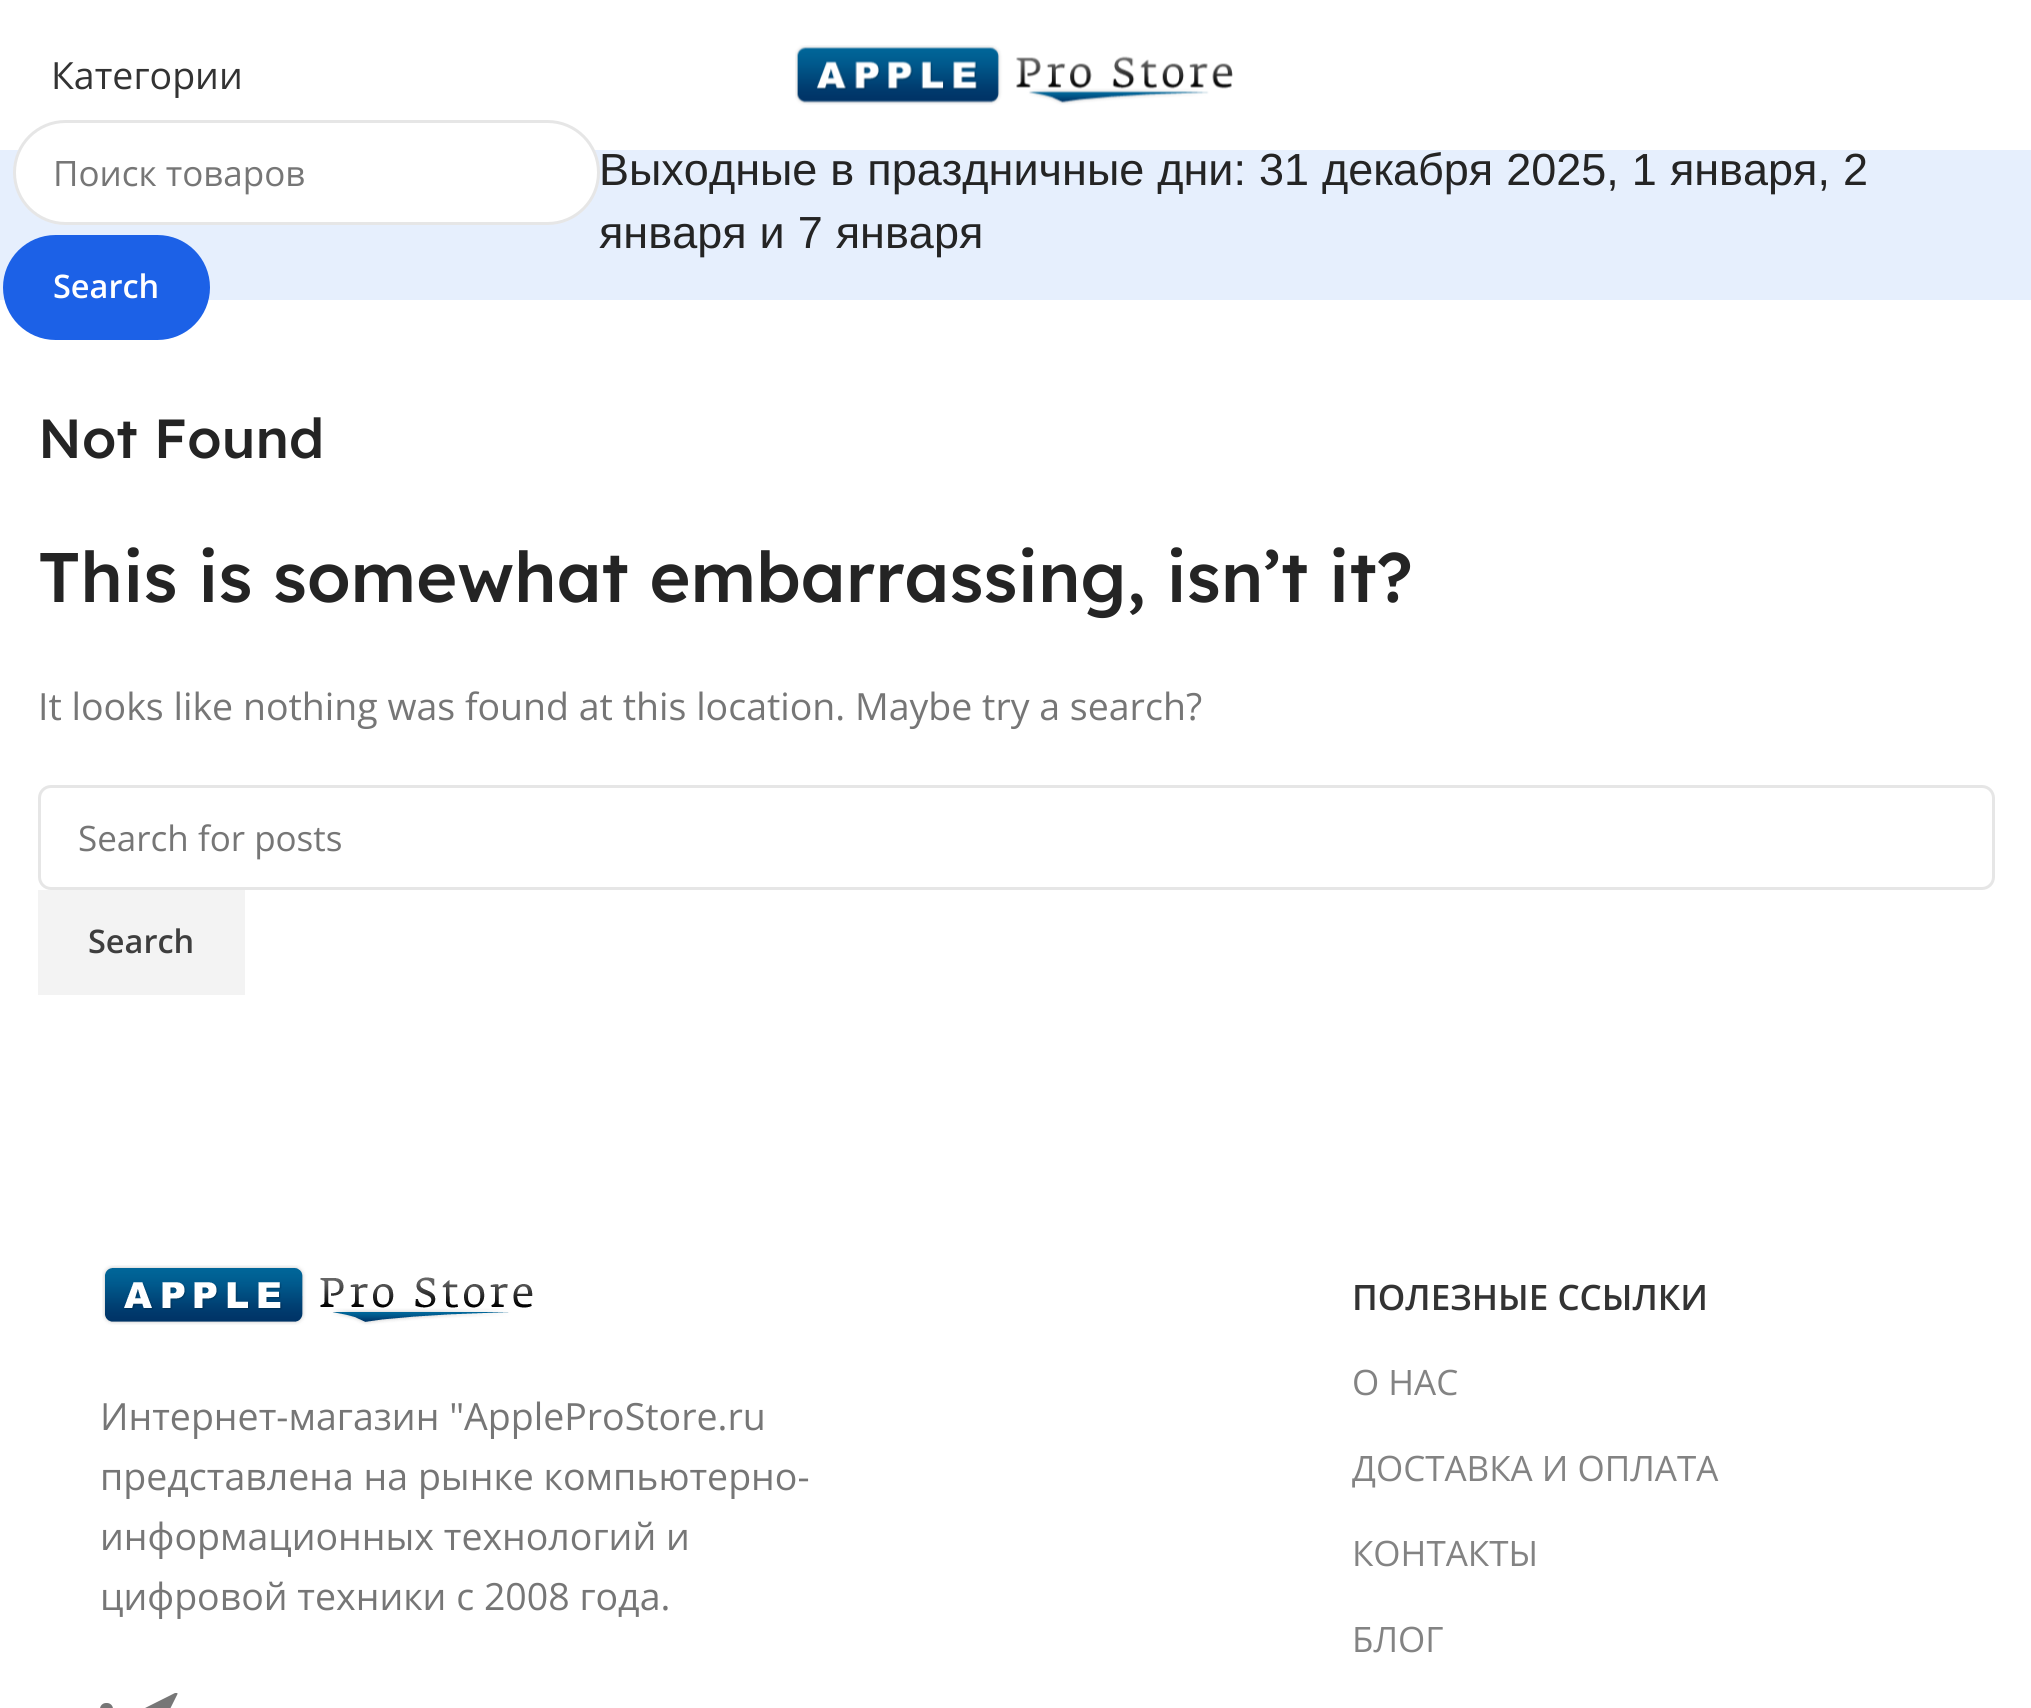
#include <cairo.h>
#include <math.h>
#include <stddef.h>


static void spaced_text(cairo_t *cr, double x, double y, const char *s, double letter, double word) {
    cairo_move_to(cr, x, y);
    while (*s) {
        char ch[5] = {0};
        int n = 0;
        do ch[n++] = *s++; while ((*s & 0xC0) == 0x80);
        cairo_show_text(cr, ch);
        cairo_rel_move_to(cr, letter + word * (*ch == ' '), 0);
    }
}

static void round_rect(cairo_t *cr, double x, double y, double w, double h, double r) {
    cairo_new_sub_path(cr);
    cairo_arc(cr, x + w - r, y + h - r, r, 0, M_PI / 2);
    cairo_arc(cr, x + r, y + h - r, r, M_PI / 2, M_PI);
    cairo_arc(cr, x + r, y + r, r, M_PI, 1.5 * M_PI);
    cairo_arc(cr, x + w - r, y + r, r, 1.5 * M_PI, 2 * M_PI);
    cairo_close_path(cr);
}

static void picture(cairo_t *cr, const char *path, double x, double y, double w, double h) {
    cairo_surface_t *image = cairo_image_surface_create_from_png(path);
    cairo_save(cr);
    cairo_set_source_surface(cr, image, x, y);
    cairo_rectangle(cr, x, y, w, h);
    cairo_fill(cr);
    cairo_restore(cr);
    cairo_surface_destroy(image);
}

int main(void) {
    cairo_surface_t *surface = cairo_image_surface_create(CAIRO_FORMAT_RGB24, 2031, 1708);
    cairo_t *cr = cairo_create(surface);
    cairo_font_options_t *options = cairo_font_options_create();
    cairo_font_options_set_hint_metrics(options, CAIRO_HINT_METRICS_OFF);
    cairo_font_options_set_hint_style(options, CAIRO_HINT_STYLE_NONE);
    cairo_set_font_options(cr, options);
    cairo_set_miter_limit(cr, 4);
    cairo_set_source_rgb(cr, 1, 1, 1);
    cairo_paint(cr);
    cairo_select_font_face(cr, "Open Sans", CAIRO_FONT_SLANT_NORMAL, CAIRO_FONT_WEIGHT_NORMAL);
    cairo_set_font_size(cr, 37.5);
    cairo_set_source_rgb(cr, 0.2, 0.2, 0.2);
    cairo_move_to(cr, 51, 89);
    cairo_show_text(cr, "Категории");
    picture(cr, "img1.png", 795, 45, 438, 60);
    cairo_set_source_rgb(cr, 0.902, 0.937, 0.992);
    cairo_rectangle(cr, 0, 150, 2031, 150);
    cairo_fill(cr);
    cairo_set_source_rgb(cr, 1, 1, 1);
    round_rect(cr, 13, 120, 587, 105, 52.5);
    cairo_fill(cr);
    round_rect(cr, 14.5, 121.5, 584, 102, 51);
    cairo_set_source_rgba(cr, 0, 0, 0, 0.1);
    cairo_set_line_width(cr, 3);
    cairo_stroke(cr);
    cairo_set_font_size(cr, 35);
    cairo_set_source_rgb(cr, 0.463, 0.463, 0.463);
    cairo_move_to(cr, 53, 186);
    cairo_show_text(cr, "Поиск товаров");
    cairo_set_source_rgb(cr, 0.11, 0.38, 0.906);
    round_rect(cr, 3, 235, 207, 105, 52.5);
    cairo_fill(cr);
    cairo_select_font_face(cr, "Open Sans SemiBold", CAIRO_FONT_SLANT_NORMAL, CAIRO_FONT_WEIGHT_NORMAL);
    cairo_set_font_size(cr, 32.5);
    cairo_set_source_rgb(cr, 1, 1, 1);
    cairo_move_to(cr, 53, 298);
    cairo_show_text(cr, "Search");
    cairo_select_font_face(cr, "Liberation Sans", CAIRO_FONT_SLANT_NORMAL, CAIRO_FONT_WEIGHT_NORMAL);
    cairo_set_font_size(cr, 45);
    cairo_set_source_rgb(cr, 0.141, 0.141, 0.141);
    spaced_text(cr, 599, 185, "Выходные в праздничные дни: 31 декабря 2025, 1 января, 2", 0, 0.5);
    spaced_text(cr, 599, 248, "января и 7 января", 0, 0.5);
    cairo_select_font_face(cr, "Lexend Deca Medium", CAIRO_FONT_SLANT_NORMAL, CAIRO_FONT_WEIGHT_NORMAL);
    cairo_set_font_size(cr, 55);
    cairo_move_to(cr, 38, 458);
    cairo_show_text(cr, "Not Found");
    cairo_set_font_size(cr, 70);
    cairo_move_to(cr, 38, 602);
    cairo_show_text(cr, "This is somewhat embarrassing, isn’t it?");
    cairo_select_font_face(cr, "Open Sans", CAIRO_FONT_SLANT_NORMAL, CAIRO_FONT_WEIGHT_NORMAL);
    cairo_set_font_size(cr, 37.5);
    cairo_set_source_rgb(cr, 0.463, 0.463, 0.463);
    cairo_move_to(cr, 38, 720);
    cairo_show_text(cr, "It looks like nothing was found at this location. Maybe try a search?");
    round_rect(cr, 39.5, 786.5, 1954, 102, 11.5);
    cairo_set_source_rgb(cr, 0.902, 0.902, 0.902);
    cairo_stroke(cr);
    cairo_set_font_size(cr, 35);
    cairo_set_source_rgb(cr, 0.463, 0.463, 0.463);
    cairo_move_to(cr, 78, 851);
    cairo_show_text(cr, "Search for posts");
    cairo_set_source_rgb(cr, 0.953, 0.953, 0.953);
    cairo_rectangle(cr, 38, 890, 207, 105);
    cairo_fill(cr);
    cairo_select_font_face(cr, "Open Sans SemiBold", CAIRO_FONT_SLANT_NORMAL, CAIRO_FONT_WEIGHT_NORMAL);
    cairo_set_font_size(cr, 32.5);
    cairo_set_source_rgb(cr, 0.243, 0.243, 0.243);
    cairo_move_to(cr, 88, 953);
    cairo_show_text(cr, "Search");
    picture(cr, "img2.png", 102, 1265, 431, 60);
    cairo_select_font_face(cr, "Open Sans", CAIRO_FONT_SLANT_NORMAL, CAIRO_FONT_WEIGHT_NORMAL);
    cairo_set_font_size(cr, 37.5);
    cairo_set_source_rgb(cr, 0.463, 0.463, 0.463);
    cairo_move_to(cr, 100, 1430);
    cairo_show_text(cr, "Интернет-магазин \"AppleProStore.ru");
    cairo_move_to(cr, 100, 1490);
    cairo_show_text(cr, "представлена на рынке компьютерно-");
    cairo_move_to(cr, 100, 1550);
    cairo_show_text(cr, "информационных технологий и");
    cairo_move_to(cr, 100, 1610);
    cairo_show_text(cr, "цифровой техники с 2008 года.");
    round_rect(cr, 100, 1703, 13, 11, 6);
    cairo_fill(cr);
    picture(cr, "img3.png", 145, 1693, 33, 15);
    cairo_select_font_face(cr, "Open Sans SemiBold", CAIRO_FONT_SLANT_NORMAL, CAIRO_FONT_WEIGHT_NORMAL);
    cairo_set_font_size(cr, 35);
    cairo_set_source_rgb(cr, 0.2, 0.2, 0.2);
    cairo_move_to(cr, 1352, 1310);
    cairo_show_text(cr, "ПОЛЕЗНЫЕ ССЫЛКИ");
    cairo_select_font_face(cr, "Open Sans", CAIRO_FONT_SLANT_NORMAL, CAIRO_FONT_WEIGHT_NORMAL);
    cairo_set_source_rgb(cr, 0.514, 0.514, 0.514);
    cairo_move_to(cr, 1352, 1395);
    cairo_show_text(cr, "О НАС");
    cairo_move_to(cr, 1352, 1481);
    cairo_show_text(cr, "ДОСТАВКА И ОПЛАТА");
    cairo_move_to(cr, 1352, 1566);
    cairo_show_text(cr, "КОНТАКТЫ");
    cairo_move_to(cr, 1352, 1652);
    cairo_show_text(cr, "БЛОГ");
    cairo_surface_write_to_png(surface, "page.png");
    cairo_font_options_destroy(options);
    cairo_destroy(cr);
    cairo_surface_destroy(surface);
    return 0;
}
